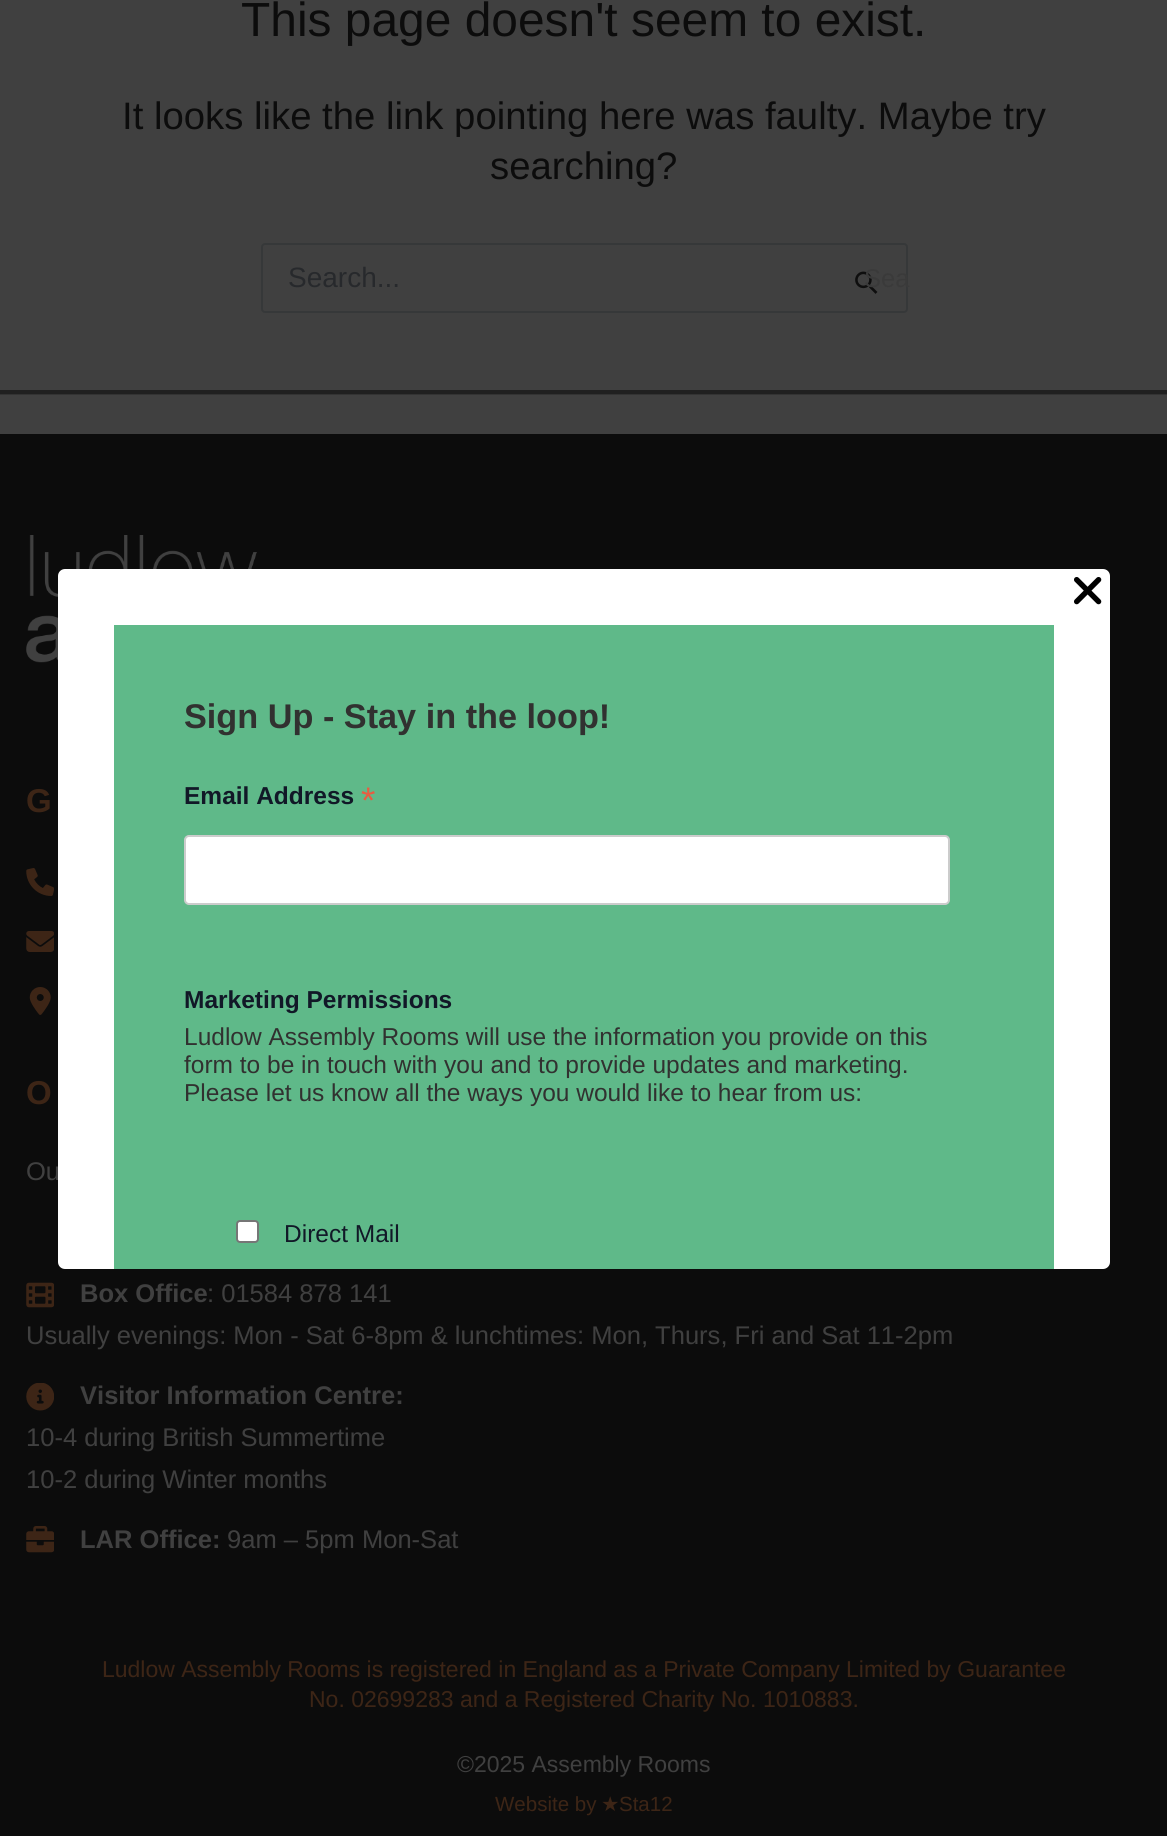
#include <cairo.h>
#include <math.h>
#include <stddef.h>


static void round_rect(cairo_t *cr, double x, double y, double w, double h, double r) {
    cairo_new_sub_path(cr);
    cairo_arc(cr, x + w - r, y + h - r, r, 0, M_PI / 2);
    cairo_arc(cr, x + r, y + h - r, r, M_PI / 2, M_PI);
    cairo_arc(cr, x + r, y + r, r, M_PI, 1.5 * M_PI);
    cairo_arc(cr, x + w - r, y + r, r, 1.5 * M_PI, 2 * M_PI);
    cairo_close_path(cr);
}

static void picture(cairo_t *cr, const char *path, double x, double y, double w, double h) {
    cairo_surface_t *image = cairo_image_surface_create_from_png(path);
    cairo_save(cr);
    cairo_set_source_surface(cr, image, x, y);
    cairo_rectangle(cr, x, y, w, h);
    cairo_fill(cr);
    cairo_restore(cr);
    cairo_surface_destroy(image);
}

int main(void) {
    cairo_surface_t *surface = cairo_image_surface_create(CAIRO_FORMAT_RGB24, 1167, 1836);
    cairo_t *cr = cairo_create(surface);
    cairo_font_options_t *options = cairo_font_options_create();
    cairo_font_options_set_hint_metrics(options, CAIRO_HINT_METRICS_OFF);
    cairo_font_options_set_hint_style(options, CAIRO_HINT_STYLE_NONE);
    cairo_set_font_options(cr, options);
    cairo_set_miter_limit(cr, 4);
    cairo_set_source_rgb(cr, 0.251, 0.251, 0.251);
    cairo_paint(cr);
    cairo_select_font_face(cr, "Liberation Sans", CAIRO_FONT_SLANT_NORMAL, CAIRO_FONT_WEIGHT_NORMAL);
    cairo_set_font_size(cr, 47.9);
    cairo_set_source_rgb(cr, 0.047, 0.047, 0.047);
    cairo_move_to(cr, 241, 36);
    cairo_show_text(cr, "This page doesn't seem to exist.");
    cairo_set_font_size(cr, 38.3);
    cairo_move_to(cr, 122, 129);
    cairo_show_text(cr, "It looks like the link pointing here was faulty. Maybe try");
    cairo_move_to(cr, 490, 179);
    cairo_show_text(cr, "searching?");
    round_rect(cr, 262, 244, 645, 68, 3);
    cairo_set_source_rgb(cr, 0.212, 0.22, 0.224);
    cairo_stroke(cr);
    cairo_set_font_size(cr, 28);
    cairo_set_source_rgb(cr, 0.153, 0.161, 0.173);
    cairo_move_to(cr, 288, 287);
    cairo_show_text(cr, "Search...");
    picture(cr, "img1.png", 855, 271, 23, 23);
    cairo_set_font_size(cr, 25.55);
    cairo_set_source_rgb(cr, 0.227, 0.227, 0.227);
    cairo_move_to(cr, 864, 287);
    cairo_show_text(cr, "Sea");
    cairo_set_source_rgb(cr, 0.2, 0.2, 0.2);
    cairo_rectangle(cr, 0, 394, 1167, 1);
    cairo_fill(cr);
    cairo_set_source_rgb(cr, 0.125, 0.125, 0.125);
    cairo_rectangle(cr, 0, 390, 1167, 4);
    cairo_fill(cr);
    cairo_set_source_rgb(cr, 0.047, 0.047, 0.047);
    cairo_rectangle(cr, 0, 434, 1167, 1402);
    cairo_fill(cr);
    picture(cr, "img2.png", 26, 535, 231, 128);
    cairo_select_font_face(cr, "Liberation Sans", CAIRO_FONT_SLANT_NORMAL, CAIRO_FONT_WEIGHT_BOLD);
    cairo_set_font_size(cr, 33);
    cairo_set_source_rgb(cr, 0.239, 0.145, 0.086);
    cairo_move_to(cr, 26, 812);
    cairo_show_text(cr, "G");
    picture(cr, "img3.png", 26, 868, 28, 28);
    picture(cr, "img4.png", 26, 931, 28, 21);
    picture(cr, "img5.png", 29, 987, 22, 28);
    cairo_move_to(cr, 26, 1104);
    cairo_show_text(cr, "O");
    cairo_select_font_face(cr, "Liberation Sans", CAIRO_FONT_SLANT_NORMAL, CAIRO_FONT_WEIGHT_NORMAL);
    cairo_set_font_size(cr, 25.55);
    cairo_set_source_rgb(cr, 0.251, 0.251, 0.251);
    cairo_move_to(cr, 26, 1180);
    cairo_show_text(cr, "Ou");
    picture(cr, "img6.png", 26, 1282, 28, 26);
    cairo_select_font_face(cr, "Liberation Sans", CAIRO_FONT_SLANT_NORMAL, CAIRO_FONT_WEIGHT_BOLD);
    cairo_move_to(cr, 80, 1302);
    cairo_show_text(cr, "Box Office");
    cairo_select_font_face(cr, "Liberation Sans", CAIRO_FONT_SLANT_NORMAL, CAIRO_FONT_WEIGHT_NORMAL);
    cairo_move_to(cr, 207, 1302);
    cairo_show_text(cr, ": 01584 878 141");
    cairo_move_to(cr, 26, 1344);
    cairo_show_text(cr, "Usually evenings: Mon - Sat 6-8pm & lunchtimes: Mon, Thurs, Fri and Sat 11-2pm");
    picture(cr, "img7.png", 26, 1383, 28, 28);
    cairo_select_font_face(cr, "Liberation Sans", CAIRO_FONT_SLANT_NORMAL, CAIRO_FONT_WEIGHT_BOLD);
    cairo_move_to(cr, 80, 1404);
    cairo_show_text(cr, "Visitor Information Centre:");
    cairo_select_font_face(cr, "Liberation Sans", CAIRO_FONT_SLANT_NORMAL, CAIRO_FONT_WEIGHT_NORMAL);
    cairo_move_to(cr, 26, 1446);
    cairo_show_text(cr, "10-4 during British Summertime");
    cairo_move_to(cr, 26, 1488);
    cairo_show_text(cr, "10-2 during Winter months");
    picture(cr, "img8.png", 26, 1526, 28, 27);
    cairo_select_font_face(cr, "Liberation Sans", CAIRO_FONT_SLANT_NORMAL, CAIRO_FONT_WEIGHT_BOLD);
    cairo_move_to(cr, 80, 1548);
    cairo_show_text(cr, "LAR Office:");
    cairo_select_font_face(cr, "Liberation Sans", CAIRO_FONT_SLANT_NORMAL, CAIRO_FONT_WEIGHT_NORMAL);
    cairo_move_to(cr, 227, 1548);
    cairo_show_text(cr, "9am – 5pm Mon-Sat");
    cairo_set_font_size(cr, 23);
    cairo_set_source_rgb(cr, 0.239, 0.145, 0.086);
    cairo_move_to(cr, 102, 1677);
    cairo_show_text(cr, "Ludlow Assembly Rooms is registered in England as a Private Company Limited by Guarantee");
    cairo_move_to(cr, 309, 1707);
    cairo_show_text(cr, "No. 02699283 and a Registered Charity No. 1010883.");
    cairo_set_source_rgb(cr, 0.251, 0.251, 0.251);
    cairo_move_to(cr, 457, 1772);
    cairo_show_text(cr, "©2025 Assembly Rooms");
    cairo_set_font_size(cr, 20.5);
    cairo_set_source_rgb(cr, 0.239, 0.145, 0.086);
    cairo_move_to(cr, 495, 1811);
    cairo_show_text(cr, "Website by");
    cairo_select_font_face(cr, "DejaVu Sans", CAIRO_FONT_SLANT_NORMAL, CAIRO_FONT_WEIGHT_NORMAL);
    cairo_move_to(cr, 601, 1811);
    cairo_show_text(cr, "★");
    cairo_select_font_face(cr, "Liberation Sans", CAIRO_FONT_SLANT_NORMAL, CAIRO_FONT_WEIGHT_NORMAL);
    cairo_move_to(cr, 619, 1811);
    cairo_show_text(cr, "Sta12");
    cairo_set_source_rgb(cr, 1, 1, 1);
    round_rect(cr, 58, 569, 1052, 700, 7);
    cairo_fill(cr);
    picture(cr, "img9.png", 1074, 577, 28, 28);
    cairo_set_source_rgb(cr, 0.373, 0.725, 0.537);
    cairo_rectangle(cr, 114, 625, 940, 644);
    cairo_fill(cr);
    cairo_select_font_face(cr, "Liberation Sans", CAIRO_FONT_SLANT_NORMAL, CAIRO_FONT_WEIGHT_BOLD);
    cairo_set_font_size(cr, 34.25);
    cairo_set_source_rgb(cr, 0.192, 0.192, 0.188);
    cairo_move_to(cr, 184, 728);
    cairo_show_text(cr, "Sign Up - Stay in the loop!");
    cairo_set_font_size(cr, 24.5);
    cairo_set_source_rgb(cr, 0.067, 0.094, 0.153);
    cairo_move_to(cr, 184, 804);
    cairo_show_text(cr, "Email Address");
    cairo_select_font_face(cr, "Liberation Sans", CAIRO_FONT_SLANT_NORMAL, CAIRO_FONT_WEIGHT_NORMAL);
    cairo_set_font_size(cr, 37);
    cairo_set_source_rgb(cr, 0.91, 0.361, 0.255);
    cairo_move_to(cr, 361, 813);
    cairo_show_text(cr, "*");
    cairo_set_source_rgb(cr, 1, 1, 1);
    round_rect(cr, 185, 836, 764, 68, 4);
    cairo_fill_preserve(cr);
    cairo_set_source_rgb(cr, 0.8, 0.8, 0.8);
    cairo_stroke(cr);
    cairo_select_font_face(cr, "Liberation Sans", CAIRO_FONT_SLANT_NORMAL, CAIRO_FONT_WEIGHT_BOLD);
    cairo_set_font_size(cr, 24.5);
    cairo_set_source_rgb(cr, 0.067, 0.094, 0.153);
    cairo_move_to(cr, 184, 1008);
    cairo_show_text(cr, "Marketing Permissions");
    cairo_select_font_face(cr, "Liberation Sans", CAIRO_FONT_SLANT_NORMAL, CAIRO_FONT_WEIGHT_NORMAL);
    cairo_set_source_rgb(cr, 0.192, 0.192, 0.188);
    cairo_move_to(cr, 184, 1045);
    cairo_show_text(cr, "Ludlow Assembly Rooms will use the information you provide on this");
    cairo_move_to(cr, 184, 1073);
    cairo_show_text(cr, "form to be in touch with you and to provide updates and marketing.");
    cairo_move_to(cr, 184, 1101);
    cairo_show_text(cr, "Please let us know all the ways you would like to hear from us:");
    cairo_set_source_rgb(cr, 1, 1, 1);
    round_rect(cr, 237, 1221, 21, 21, 3);
    cairo_fill_preserve(cr);
    cairo_set_source_rgb(cr, 0.463, 0.463, 0.463);
    cairo_stroke(cr);
    cairo_set_source_rgb(cr, 0.067, 0.094, 0.153);
    cairo_move_to(cr, 284, 1242);
    cairo_show_text(cr, "Direct Mail");
    cairo_surface_write_to_png(surface, "page.png");
    cairo_font_options_destroy(options);
    cairo_destroy(cr);
    cairo_surface_destroy(surface);
    return 0;
}
